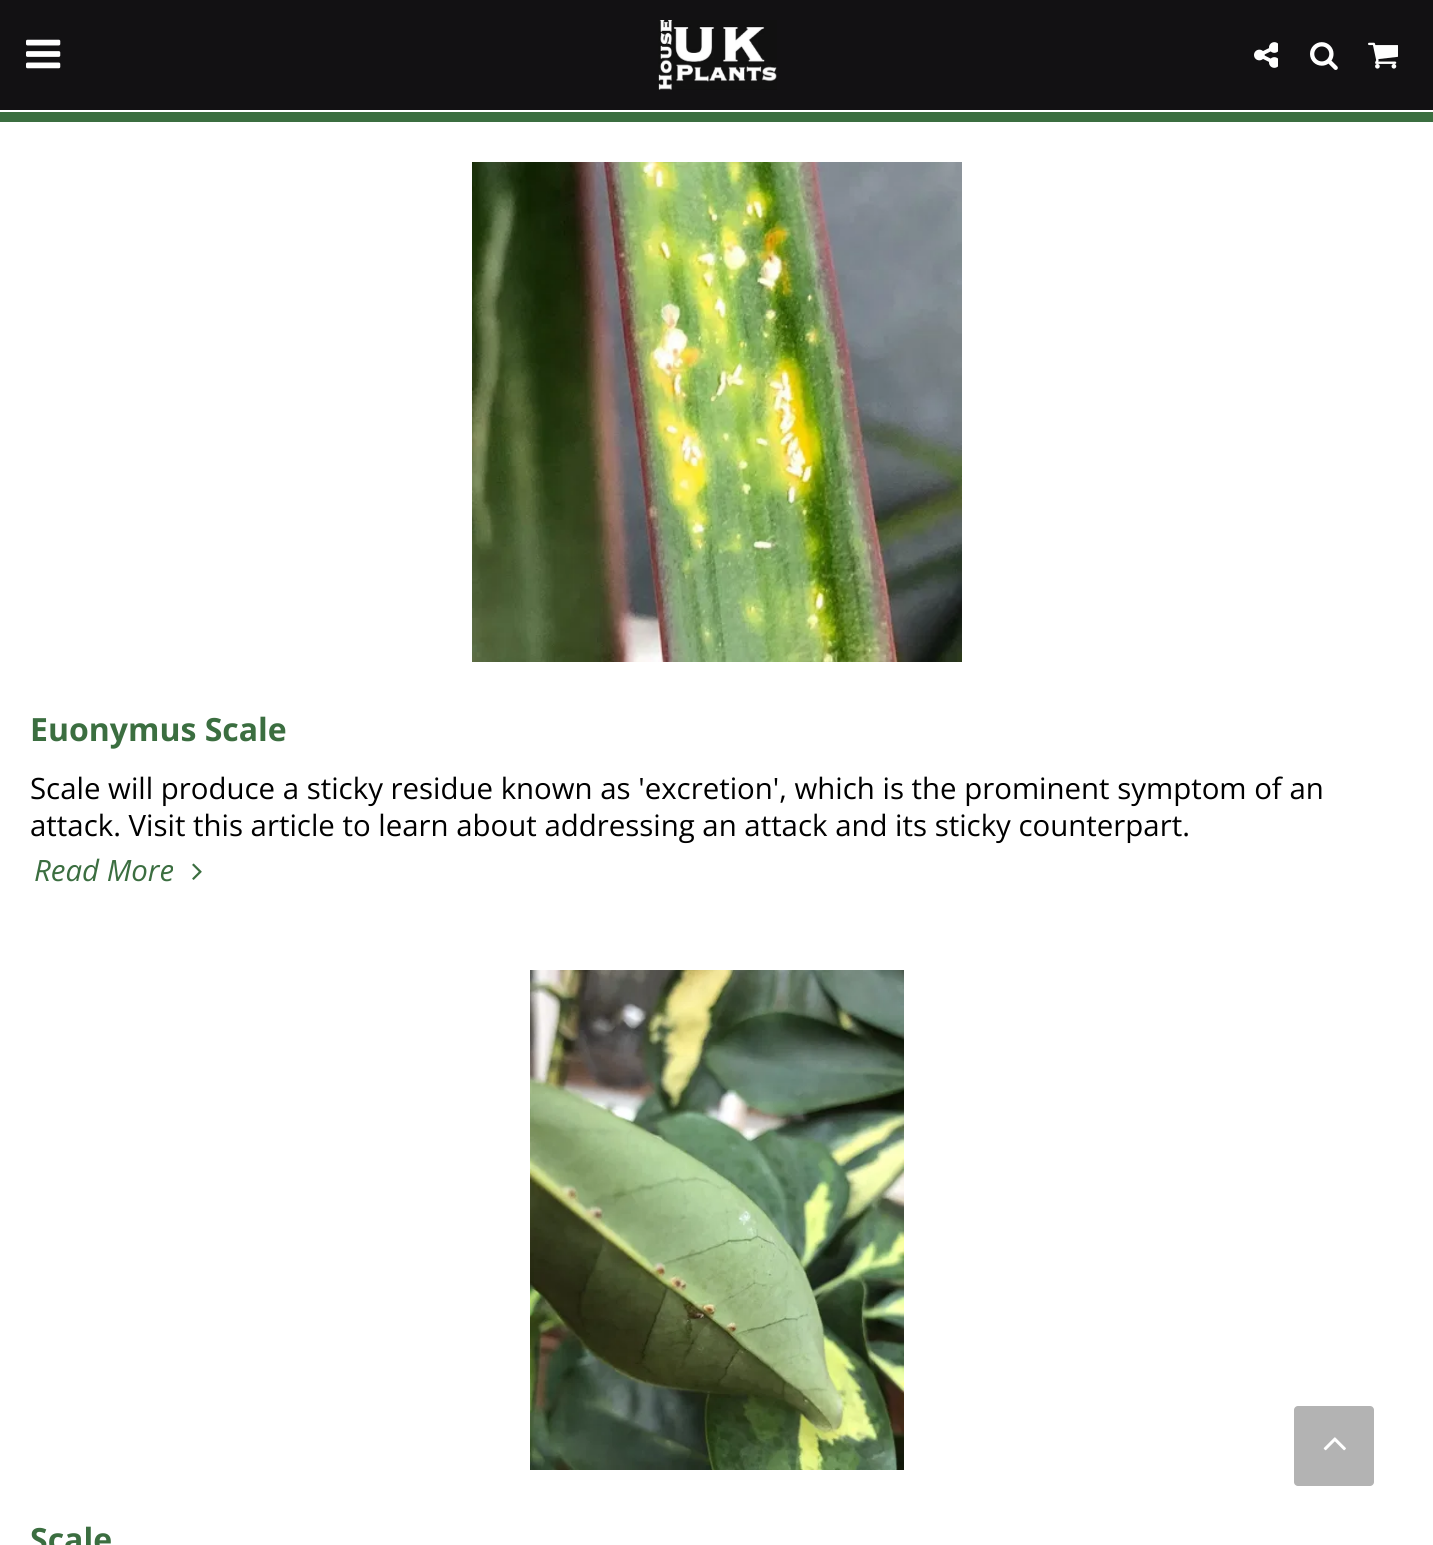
#include <cairo.h>
#include <math.h>
#include <stddef.h>


static void round_rect(cairo_t *cr, double x, double y, double w, double h, double r) {
    cairo_new_sub_path(cr);
    cairo_arc(cr, x + w - r, y + h - r, r, 0, M_PI / 2);
    cairo_arc(cr, x + r, y + h - r, r, M_PI / 2, M_PI);
    cairo_arc(cr, x + r, y + r, r, M_PI, 1.5 * M_PI);
    cairo_arc(cr, x + w - r, y + r, r, 1.5 * M_PI, 2 * M_PI);
    cairo_close_path(cr);
}

static void picture(cairo_t *cr, const char *path, double x, double y, double w, double h) {
    cairo_surface_t *image = cairo_image_surface_create_from_png(path);
    cairo_save(cr);
    cairo_set_source_surface(cr, image, x, y);
    cairo_rectangle(cr, x, y, w, h);
    cairo_fill(cr);
    cairo_restore(cr);
    cairo_surface_destroy(image);
}

int main(void) {
    cairo_surface_t *surface = cairo_image_surface_create(CAIRO_FORMAT_RGB24, 1433, 1545);
    cairo_t *cr = cairo_create(surface);
    cairo_font_options_t *options = cairo_font_options_create();
    cairo_font_options_set_hint_metrics(options, CAIRO_HINT_METRICS_OFF);
    cairo_font_options_set_hint_style(options, CAIRO_HINT_STYLE_NONE);
    cairo_set_font_options(cr, options);
    cairo_set_miter_limit(cr, 4);
    cairo_set_source_rgb(cr, 1, 1, 1);
    cairo_paint(cr);
    cairo_set_source_rgb(cr, 0.071, 0.067, 0.075);
    cairo_rectangle(cr, 0, 0, 1433, 110);
    cairo_fill(cr);
    picture(cr, "img1.png", 26, 39, 35, 30);
    picture(cr, "img2.png", 658, 20, 119, 70);
    picture(cr, "img3.png", 1254, 42, 24, 26);
    picture(cr, "img4.png", 1310, 42, 28, 28);
    picture(cr, "img5.png", 1368, 42, 30, 27);
    cairo_set_source_rgb(cr, 0.231, 0.431, 0.251);
    cairo_rectangle(cr, 0, 112, 1433, 10);
    cairo_fill(cr);
    picture(cr, "img6.png", 472, 162, 490, 500);
    cairo_select_font_face(cr, "Open Sans", CAIRO_FONT_SLANT_NORMAL, CAIRO_FONT_WEIGHT_BOLD);
    cairo_set_font_size(cr, 32);
    cairo_move_to(cr, 30, 741);
    cairo_show_text(cr, "Euonymus Scale");
    cairo_select_font_face(cr, "Open Sans", CAIRO_FONT_SLANT_NORMAL, CAIRO_FONT_WEIGHT_NORMAL);
    cairo_set_font_size(cr, 29.4);
    cairo_set_source_rgb(cr, 0, 0, 0);
    cairo_move_to(cr, 30, 799);
    cairo_show_text(cr, "Scale will produce a sticky residue known as 'excretion', which is the prominent symptom of an");
    cairo_move_to(cr, 30, 836);
    cairo_show_text(cr, "attack. Visit this article to learn about addressing an attack and its sticky counterpart.");
    cairo_select_font_face(cr, "Open Sans", CAIRO_FONT_SLANT_ITALIC, CAIRO_FONT_WEIGHT_NORMAL);
    cairo_set_source_rgb(cr, 0.231, 0.431, 0.251);
    cairo_move_to(cr, 34, 881);
    cairo_show_text(cr, "Read More");
    picture(cr, "img7.png", 192, 863, 10, 17);
    picture(cr, "img8.png", 530, 970, 374, 500);
    cairo_select_font_face(cr, "Open Sans", CAIRO_FONT_SLANT_NORMAL, CAIRO_FONT_WEIGHT_BOLD);
    cairo_set_font_size(cr, 32);
    cairo_move_to(cr, 30, 1551);
    cairo_show_text(cr, "Scale");
    cairo_set_source_rgb(cr, 0.702, 0.702, 0.702);
    round_rect(cr, 1294, 1406, 80, 80, 4);
    cairo_fill(cr);
    picture(cr, "img9.png", 1323, 1437, 23, 14);
    cairo_surface_write_to_png(surface, "page.png");
    cairo_font_options_destroy(options);
    cairo_destroy(cr);
    cairo_surface_destroy(surface);
    return 0;
}
